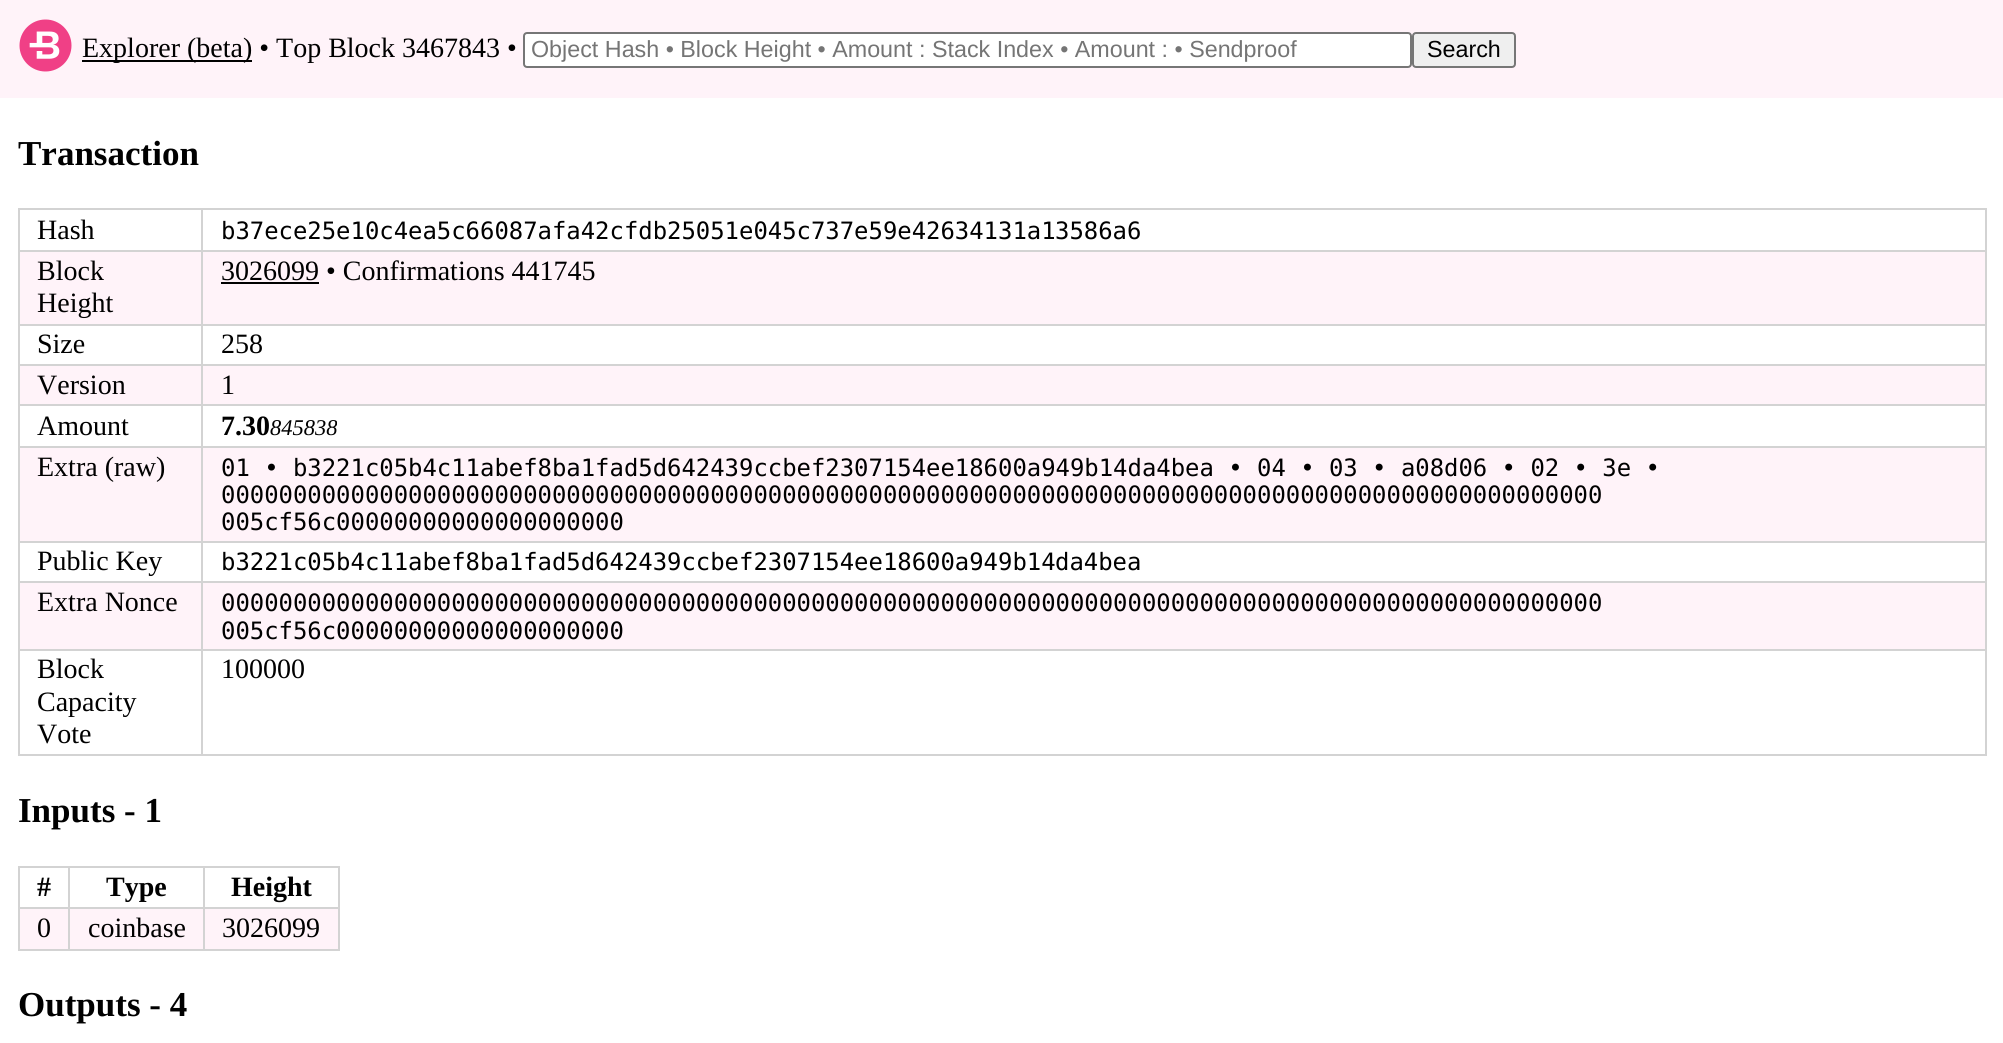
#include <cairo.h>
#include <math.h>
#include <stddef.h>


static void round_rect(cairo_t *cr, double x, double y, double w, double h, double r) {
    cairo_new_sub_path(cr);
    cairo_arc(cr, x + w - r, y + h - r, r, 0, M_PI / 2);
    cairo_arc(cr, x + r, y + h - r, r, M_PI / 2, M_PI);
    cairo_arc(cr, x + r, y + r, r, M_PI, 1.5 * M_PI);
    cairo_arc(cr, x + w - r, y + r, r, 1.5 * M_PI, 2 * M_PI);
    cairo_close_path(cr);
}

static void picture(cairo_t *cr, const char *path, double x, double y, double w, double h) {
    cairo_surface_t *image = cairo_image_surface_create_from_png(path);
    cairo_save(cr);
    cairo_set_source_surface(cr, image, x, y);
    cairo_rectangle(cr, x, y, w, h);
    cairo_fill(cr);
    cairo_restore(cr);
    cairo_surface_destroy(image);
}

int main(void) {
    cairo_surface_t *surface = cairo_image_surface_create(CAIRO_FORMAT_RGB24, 2003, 1043);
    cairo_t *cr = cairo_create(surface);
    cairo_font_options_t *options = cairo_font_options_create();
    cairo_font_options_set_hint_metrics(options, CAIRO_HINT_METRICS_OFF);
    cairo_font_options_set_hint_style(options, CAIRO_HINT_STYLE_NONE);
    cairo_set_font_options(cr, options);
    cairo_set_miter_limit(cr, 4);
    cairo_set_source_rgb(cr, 1, 1, 1);
    cairo_paint(cr);
    cairo_set_source_rgb(cr, 1, 0.953, 0.976);
    cairo_rectangle(cr, 0, 0, 2003, 98);
    cairo_fill(cr);
    picture(cr, "img1.png", 19, 19, 53, 53);
    cairo_set_source_rgb(cr, 0, 0, 0);
    cairo_rectangle(cr, 82, 60, 170, 2);
    cairo_fill(cr);
    cairo_select_font_face(cr, "Liberation Serif", CAIRO_FONT_SLANT_NORMAL, CAIRO_FONT_WEIGHT_NORMAL);
    cairo_set_font_size(cr, 28);
    cairo_move_to(cr, 82, 57);
    cairo_show_text(cr, "Explorer (beta) • Top Block 3467843 •");
    cairo_set_source_rgb(cr, 1, 1, 1);
    round_rect(cr, 524, 33, 887, 34, 3);
    cairo_fill_preserve(cr);
    cairo_set_source_rgb(cr, 0.463, 0.463, 0.463);
    cairo_stroke(cr);
    cairo_select_font_face(cr, "Liberation Sans", CAIRO_FONT_SLANT_NORMAL, CAIRO_FONT_WEIGHT_NORMAL);
    cairo_set_font_size(cr, 23.3);
    cairo_set_source_rgb(cr, 0.459, 0.459, 0.459);
    cairo_move_to(cr, 531, 57);
    cairo_show_text(cr, "Object Hash • Block Height • Amount : Stack Index • Amount : • Sendproof");
    cairo_set_source_rgb(cr, 0.937, 0.937, 0.937);
    round_rect(cr, 1413, 33, 102, 34, 3);
    cairo_fill_preserve(cr);
    cairo_set_source_rgb(cr, 0.463, 0.463, 0.463);
    cairo_stroke(cr);
    cairo_set_source_rgb(cr, 0, 0, 0);
    cairo_move_to(cr, 1427, 57);
    cairo_show_text(cr, "Search");
    cairo_select_font_face(cr, "Liberation Serif", CAIRO_FONT_SLANT_NORMAL, CAIRO_FONT_WEIGHT_BOLD);
    cairo_set_font_size(cr, 35);
    cairo_move_to(cr, 18, 165);
    cairo_show_text(cr, "Transaction");
    cairo_set_source_rgb(cr, 0.827, 0.827, 0.827);
    cairo_rectangle(cr, 201, 208, 1785, 2);
    cairo_fill(cr);
    cairo_rectangle(cr, 201, 250, 1785, 2);
    cairo_fill(cr);
    cairo_set_source_rgb(cr, 1, 0.953, 0.976);
    cairo_rectangle(cr, 20, 252, 1965, 72);
    cairo_fill(cr);
    cairo_set_source_rgb(cr, 0.827, 0.827, 0.827);
    cairo_rectangle(cr, 201, 324, 1785, 2);
    cairo_fill(cr);
    cairo_rectangle(cr, 201, 364, 1785, 2);
    cairo_fill(cr);
    cairo_set_source_rgb(cr, 1, 0.953, 0.976);
    cairo_rectangle(cr, 20, 366, 1965, 38);
    cairo_fill(cr);
    cairo_set_source_rgb(cr, 0.827, 0.827, 0.827);
    cairo_rectangle(cr, 201, 404, 1785, 2);
    cairo_fill(cr);
    cairo_rectangle(cr, 201, 446, 1785, 2);
    cairo_fill(cr);
    cairo_set_source_rgb(cr, 1, 0.953, 0.976);
    cairo_rectangle(cr, 20, 448, 1965, 93);
    cairo_fill(cr);
    cairo_set_source_rgb(cr, 0.827, 0.827, 0.827);
    cairo_rectangle(cr, 201, 541, 1785, 2);
    cairo_fill(cr);
    cairo_rectangle(cr, 201, 581, 1785, 2);
    cairo_fill(cr);
    cairo_set_source_rgb(cr, 1, 0.953, 0.976);
    cairo_rectangle(cr, 20, 583, 1965, 66);
    cairo_fill(cr);
    cairo_set_source_rgb(cr, 0.827, 0.827, 0.827);
    cairo_rectangle(cr, 201, 649, 1785, 2);
    cairo_fill(cr);
    cairo_rectangle(cr, 1985, 649, 2, 107);
    cairo_fill(cr);
    cairo_rectangle(cr, 201, 754, 1785, 2);
    cairo_fill(cr);
    cairo_rectangle(cr, 201, 649, 2, 107);
    cairo_fill(cr);
    cairo_rectangle(cr, 18, 649, 185, 2);
    cairo_fill(cr);
    cairo_rectangle(cr, 201, 581, 2, 70);
    cairo_fill(cr);
    cairo_rectangle(cr, 18, 581, 185, 2);
    cairo_fill(cr);
    cairo_rectangle(cr, 201, 541, 2, 42);
    cairo_fill(cr);
    cairo_rectangle(cr, 18, 541, 185, 2);
    cairo_fill(cr);
    cairo_rectangle(cr, 201, 446, 2, 97);
    cairo_fill(cr);
    cairo_rectangle(cr, 18, 446, 185, 2);
    cairo_fill(cr);
    cairo_rectangle(cr, 201, 404, 2, 44);
    cairo_fill(cr);
    cairo_rectangle(cr, 18, 404, 185, 2);
    cairo_fill(cr);
    cairo_rectangle(cr, 201, 364, 2, 42);
    cairo_fill(cr);
    cairo_rectangle(cr, 18, 364, 185, 2);
    cairo_fill(cr);
    cairo_rectangle(cr, 201, 324, 2, 42);
    cairo_fill(cr);
    cairo_rectangle(cr, 18, 324, 185, 2);
    cairo_fill(cr);
    cairo_rectangle(cr, 201, 250, 2, 76);
    cairo_fill(cr);
    cairo_rectangle(cr, 18, 250, 185, 2);
    cairo_fill(cr);
    cairo_rectangle(cr, 201, 208, 2, 44);
    cairo_fill(cr);
    cairo_rectangle(cr, 18, 208, 185, 2);
    cairo_fill(cr);
    cairo_rectangle(cr, 18, 754, 185, 2);
    cairo_fill(cr);
    cairo_rectangle(cr, 18, 649, 2, 107);
    cairo_fill(cr);
    cairo_rectangle(cr, 18, 581, 2, 70);
    cairo_fill(cr);
    cairo_rectangle(cr, 18, 541, 2, 42);
    cairo_fill(cr);
    cairo_rectangle(cr, 18, 446, 2, 97);
    cairo_fill(cr);
    cairo_rectangle(cr, 18, 404, 2, 44);
    cairo_fill(cr);
    cairo_rectangle(cr, 18, 364, 2, 42);
    cairo_fill(cr);
    cairo_rectangle(cr, 18, 324, 2, 42);
    cairo_fill(cr);
    cairo_rectangle(cr, 18, 250, 2, 76);
    cairo_fill(cr);
    cairo_rectangle(cr, 18, 208, 2, 44);
    cairo_fill(cr);
    cairo_select_font_face(cr, "Liberation Serif", CAIRO_FONT_SLANT_NORMAL, CAIRO_FONT_WEIGHT_NORMAL);
    cairo_set_font_size(cr, 28);
    cairo_set_source_rgb(cr, 0, 0, 0);
    cairo_move_to(cr, 37, 239);
    cairo_show_text(cr, "Hash");
    cairo_set_source_rgb(cr, 0.827, 0.827, 0.827);
    cairo_rectangle(cr, 1985, 581, 2, 70);
    cairo_fill(cr);
    cairo_rectangle(cr, 1985, 541, 2, 42);
    cairo_fill(cr);
    cairo_rectangle(cr, 1985, 446, 2, 97);
    cairo_fill(cr);
    cairo_rectangle(cr, 1985, 404, 2, 44);
    cairo_fill(cr);
    cairo_rectangle(cr, 1985, 364, 2, 42);
    cairo_fill(cr);
    cairo_rectangle(cr, 1985, 324, 2, 42);
    cairo_fill(cr);
    cairo_rectangle(cr, 1985, 250, 2, 76);
    cairo_fill(cr);
    cairo_rectangle(cr, 1985, 208, 2, 44);
    cairo_fill(cr);
    cairo_select_font_face(cr, "DejaVu Sans Mono", CAIRO_FONT_SLANT_NORMAL, CAIRO_FONT_WEIGHT_NORMAL);
    cairo_set_font_size(cr, 23.9);
    cairo_set_source_rgb(cr, 0, 0, 0);
    cairo_move_to(cr, 221, 239);
    cairo_show_text(cr, "b37ece25e10c4ea5c66087afa42cfdb25051e045c737e59e42634131a1");
    cairo_move_to(cr, 1055, 239);
    cairo_show_text(cr, "3586a6");
    cairo_select_font_face(cr, "Liberation Serif", CAIRO_FONT_SLANT_NORMAL, CAIRO_FONT_WEIGHT_NORMAL);
    cairo_set_font_size(cr, 28);
    cairo_move_to(cr, 37, 280);
    cairo_show_text(cr, "Block");
    cairo_move_to(cr, 37, 312);
    cairo_show_text(cr, "Height");
    cairo_move_to(cr, 221, 280);
    cairo_show_text(cr, "3026099 • Confirmations 441745");
    cairo_rectangle(cr, 221, 282, 98, 2);
    cairo_fill(cr);
    cairo_move_to(cr, 37, 353);
    cairo_show_text(cr, "Size");
    cairo_move_to(cr, 221, 353);
    cairo_show_text(cr, "258");
    cairo_move_to(cr, 37, 394);
    cairo_show_text(cr, "Version");
    cairo_move_to(cr, 221, 394);
    cairo_show_text(cr, "1");
    cairo_move_to(cr, 37, 435);
    cairo_show_text(cr, "Amount");
    cairo_select_font_face(cr, "Liberation Serif", CAIRO_FONT_SLANT_NORMAL, CAIRO_FONT_WEIGHT_BOLD);
    cairo_move_to(cr, 221, 435);
    cairo_show_text(cr, "7.30");
    cairo_select_font_face(cr, "Liberation Serif", CAIRO_FONT_SLANT_ITALIC, CAIRO_FONT_WEIGHT_NORMAL);
    cairo_set_font_size(cr, 22.5);
    cairo_move_to(cr, 270, 435);
    cairo_show_text(cr, "845838");
    cairo_select_font_face(cr, "Liberation Serif", CAIRO_FONT_SLANT_NORMAL, CAIRO_FONT_WEIGHT_NORMAL);
    cairo_set_font_size(cr, 28);
    cairo_move_to(cr, 37, 476);
    cairo_show_text(cr, "Extra (raw)");
    cairo_select_font_face(cr, "DejaVu Sans Mono", CAIRO_FONT_SLANT_NORMAL, CAIRO_FONT_WEIGHT_NORMAL);
    cairo_set_font_size(cr, 23.9);
    cairo_move_to(cr, 221, 476);
    cairo_show_text(cr, "01 • b3221c05b4c11abef8ba1fad5d642439ccbef2307154ee18600a949b14da4bea • 04 • 03 • a08d06 • 02 • 3e •");
    cairo_move_to(cr, 221, 503);
    cairo_show_text(cr, "000000000000000000000000000000000000000000000000000000000000000000000000000000000000000000000000");
    cairo_move_to(cr, 221, 530);
    cairo_show_text(cr, "005cf56c00000000000000000000");
    cairo_select_font_face(cr, "Liberation Serif", CAIRO_FONT_SLANT_NORMAL, CAIRO_FONT_WEIGHT_NORMAL);
    cairo_set_font_size(cr, 28);
    cairo_move_to(cr, 37, 570);
    cairo_show_text(cr, "Public Key");
    cairo_select_font_face(cr, "DejaVu Sans Mono", CAIRO_FONT_SLANT_NORMAL, CAIRO_FONT_WEIGHT_NORMAL);
    cairo_set_font_size(cr, 23.9);
    cairo_move_to(cr, 221, 570);
    cairo_show_text(cr, "b3221c05b4c11abef8ba1fad5d642439ccbef2307154ee18600a949b14");
    cairo_move_to(cr, 1055, 570);
    cairo_show_text(cr, "da4bea");
    cairo_select_font_face(cr, "Liberation Serif", CAIRO_FONT_SLANT_NORMAL, CAIRO_FONT_WEIGHT_NORMAL);
    cairo_set_font_size(cr, 28);
    cairo_move_to(cr, 37, 611);
    cairo_show_text(cr, "Extra Nonce");
    cairo_select_font_face(cr, "DejaVu Sans Mono", CAIRO_FONT_SLANT_NORMAL, CAIRO_FONT_WEIGHT_NORMAL);
    cairo_set_font_size(cr, 23.9);
    cairo_move_to(cr, 221, 611);
    cairo_show_text(cr, "000000000000000000000000000000000000000000000000000000000000000000000000000000000000000000000000");
    cairo_move_to(cr, 221, 639);
    cairo_show_text(cr, "005cf56c00000000000000000000");
    cairo_select_font_face(cr, "Liberation Serif", CAIRO_FONT_SLANT_NORMAL, CAIRO_FONT_WEIGHT_NORMAL);
    cairo_set_font_size(cr, 28);
    cairo_move_to(cr, 37, 678);
    cairo_show_text(cr, "Block");
    cairo_move_to(cr, 37, 711);
    cairo_show_text(cr, "Capacity");
    cairo_move_to(cr, 37, 743);
    cairo_show_text(cr, "Vote");
    cairo_move_to(cr, 221, 678);
    cairo_show_text(cr, "100000");
    cairo_select_font_face(cr, "Liberation Serif", CAIRO_FONT_SLANT_NORMAL, CAIRO_FONT_WEIGHT_BOLD);
    cairo_set_font_size(cr, 35);
    cairo_move_to(cr, 18, 822);
    cairo_show_text(cr, "Inputs - 1");
    cairo_set_source_rgb(cr, 0.827, 0.827, 0.827);
    cairo_rectangle(cr, 203, 866, 137, 2);
    cairo_fill(cr);
    cairo_rectangle(cr, 203, 907, 137, 2);
    cairo_fill(cr);
    cairo_set_source_rgb(cr, 1, 0.953, 0.976);
    cairo_rectangle(cr, 20, 909, 318, 40);
    cairo_fill(cr);
    cairo_set_source_rgb(cr, 0.827, 0.827, 0.827);
    cairo_rectangle(cr, 338, 907, 2, 43);
    cairo_fill(cr);
    cairo_rectangle(cr, 203, 949, 137, 2);
    cairo_fill(cr);
    cairo_rectangle(cr, 203, 907, 2, 43);
    cairo_fill(cr);
    cairo_rectangle(cr, 68, 907, 137, 2);
    cairo_fill(cr);
    cairo_rectangle(cr, 203, 866, 2, 42);
    cairo_fill(cr);
    cairo_rectangle(cr, 68, 866, 137, 2);
    cairo_fill(cr);
    cairo_rectangle(cr, 68, 949, 137, 2);
    cairo_fill(cr);
    cairo_rectangle(cr, 68, 907, 2, 43);
    cairo_fill(cr);
    cairo_rectangle(cr, 18, 907, 52, 2);
    cairo_fill(cr);
    cairo_rectangle(cr, 68, 866, 2, 42);
    cairo_fill(cr);
    cairo_rectangle(cr, 18, 866, 52, 2);
    cairo_fill(cr);
    cairo_rectangle(cr, 18, 949, 52, 2);
    cairo_fill(cr);
    cairo_rectangle(cr, 18, 907, 2, 43);
    cairo_fill(cr);
    cairo_rectangle(cr, 18, 866, 2, 42);
    cairo_fill(cr);
    cairo_set_font_size(cr, 28);
    cairo_set_source_rgb(cr, 0, 0, 0);
    cairo_move_to(cr, 37, 896);
    cairo_show_text(cr, "#");
    cairo_move_to(cr, 106, 896);
    cairo_show_text(cr, "Type");
    cairo_set_source_rgb(cr, 0.827, 0.827, 0.827);
    cairo_rectangle(cr, 338, 866, 2, 42);
    cairo_fill(cr);
    cairo_set_source_rgb(cr, 0, 0, 0);
    cairo_move_to(cr, 231, 896);
    cairo_show_text(cr, "Height");
    cairo_select_font_face(cr, "Liberation Serif", CAIRO_FONT_SLANT_NORMAL, CAIRO_FONT_WEIGHT_NORMAL);
    cairo_move_to(cr, 37, 937);
    cairo_show_text(cr, "0");
    cairo_move_to(cr, 88, 937);
    cairo_show_text(cr, "coinbase");
    cairo_move_to(cr, 222, 937);
    cairo_show_text(cr, "3026099");
    cairo_select_font_face(cr, "Liberation Serif", CAIRO_FONT_SLANT_NORMAL, CAIRO_FONT_WEIGHT_BOLD);
    cairo_set_font_size(cr, 35);
    cairo_move_to(cr, 18, 1016);
    cairo_show_text(cr, "Outputs - 4");
    cairo_surface_write_to_png(surface, "page.png");
    cairo_font_options_destroy(options);
    cairo_destroy(cr);
    cairo_surface_destroy(surface);
    return 0;
}
